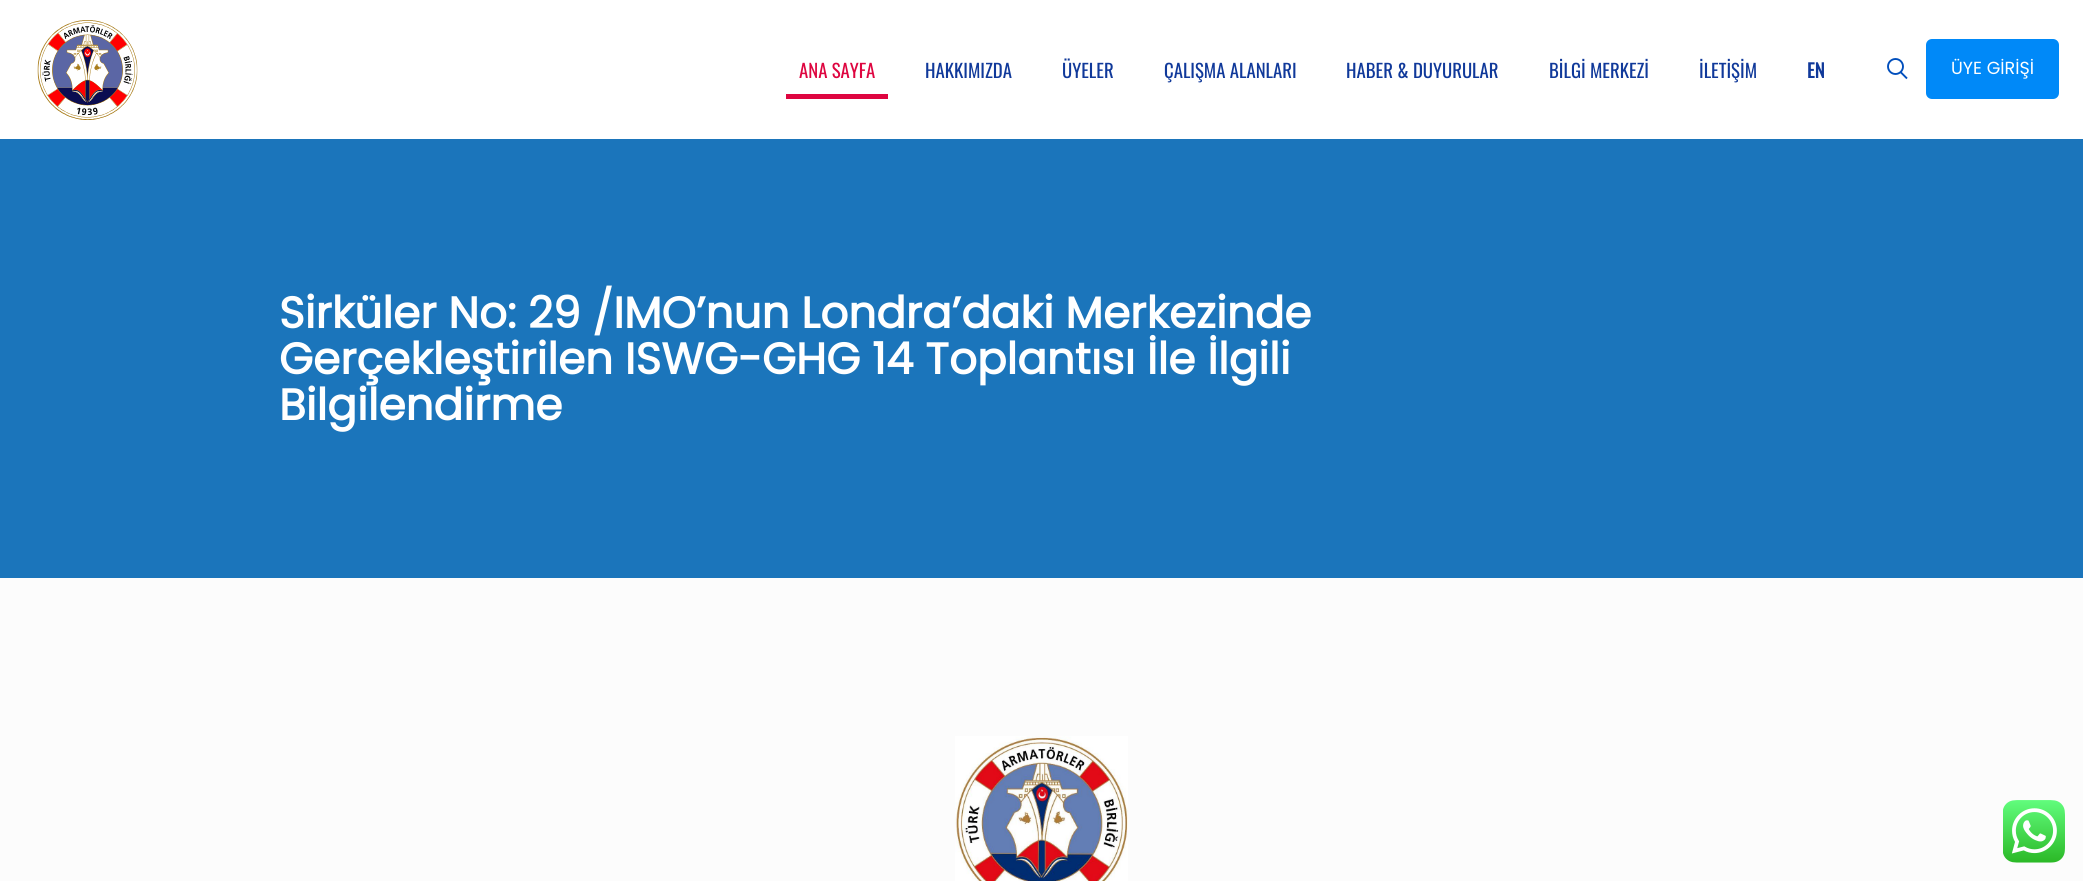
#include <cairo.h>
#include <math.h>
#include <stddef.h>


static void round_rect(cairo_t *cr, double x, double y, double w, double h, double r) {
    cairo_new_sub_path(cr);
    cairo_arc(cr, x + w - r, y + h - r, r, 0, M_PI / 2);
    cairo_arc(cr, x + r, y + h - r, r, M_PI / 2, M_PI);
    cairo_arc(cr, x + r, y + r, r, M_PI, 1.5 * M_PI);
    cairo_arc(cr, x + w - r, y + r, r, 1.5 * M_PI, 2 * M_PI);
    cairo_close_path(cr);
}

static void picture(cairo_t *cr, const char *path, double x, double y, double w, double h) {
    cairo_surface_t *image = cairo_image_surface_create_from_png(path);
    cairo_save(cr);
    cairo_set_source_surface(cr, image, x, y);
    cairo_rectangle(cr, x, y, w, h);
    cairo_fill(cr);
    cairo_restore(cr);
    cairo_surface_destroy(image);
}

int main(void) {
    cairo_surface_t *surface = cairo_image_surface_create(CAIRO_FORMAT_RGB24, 2083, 881);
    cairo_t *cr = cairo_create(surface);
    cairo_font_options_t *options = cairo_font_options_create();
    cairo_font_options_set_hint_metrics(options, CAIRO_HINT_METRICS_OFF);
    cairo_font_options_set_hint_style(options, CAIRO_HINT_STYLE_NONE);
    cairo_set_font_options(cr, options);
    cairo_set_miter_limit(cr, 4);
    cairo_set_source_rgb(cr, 0.988, 0.988, 0.988);
    cairo_paint(cr);
    cairo_set_source_rgb(cr, 1, 1, 1);
    cairo_rectangle(cr, 0, 0, 2083, 139);
    cairo_fill(cr);
    picture(cr, "img1.png", 37, 20, 101, 100);
    cairo_select_font_face(cr, "Oswald", CAIRO_FONT_SLANT_NORMAL, CAIRO_FONT_WEIGHT_NORMAL);
    cairo_set_font_size(cr, 18.75);
    cairo_set_source_rgb(cr, 0.871, 0.02, 0.251);
    cairo_move_to(cr, 799, 78);
    cairo_show_text(cr, "ANA SAYFA");
    cairo_rectangle(cr, 786, 94, 102, 5);
    cairo_fill(cr);
    cairo_set_source_rgb(cr, 0.063, 0.224, 0.604);
    cairo_move_to(cr, 925, 78);
    cairo_show_text(cr, "HAKKIMIZDA");
    cairo_move_to(cr, 1062, 78);
    cairo_show_text(cr, "ÜYELER");
    cairo_move_to(cr, 1164, 78);
    cairo_show_text(cr, "ÇALIŞMA ALANLARI");
    cairo_move_to(cr, 1346, 78);
    cairo_show_text(cr, "HABER & DUYURULAR");
    cairo_move_to(cr, 1549, 78);
    cairo_show_text(cr, "BİLGİ MERKEZİ");
    cairo_move_to(cr, 1699, 78);
    cairo_show_text(cr, "İLETİŞİM");
    cairo_select_font_face(cr, "Oswald", CAIRO_FONT_SLANT_NORMAL, CAIRO_FONT_WEIGHT_BOLD);
    cairo_move_to(cr, 1807, 78);
    cairo_show_text(cr, "EN");
    cairo_new_path(cr);
    cairo_arc(cr, 1895.5, 66.5, 7.5, 0, 2 * M_PI);
    cairo_set_source_rgb(cr, 0, 0.306, 0.737);
    cairo_set_line_width(cr, 1.9);
    cairo_stroke(cr);
    cairo_new_path(cr);
    cairo_move_to(cr, 1900.5, 72);
    cairo_line_to(cr, 1907, 78.5);
    cairo_stroke(cr);
    cairo_set_source_rgb(cr, 0, 0.537, 0.969);
    round_rect(cr, 1926, 39, 133, 60, 6);
    cairo_fill(cr);
    cairo_select_font_face(cr, "Poppins", CAIRO_FONT_SLANT_NORMAL, CAIRO_FONT_WEIGHT_NORMAL);
    cairo_set_font_size(cr, 17.5);
    cairo_set_source_rgb(cr, 1, 1, 1);
    cairo_move_to(cr, 1951, 74);
    cairo_show_text(cr, "ÜYE GİRİŞİ");
    cairo_set_source_rgb(cr, 0.106, 0.459, 0.733);
    cairo_rectangle(cr, 0, 139, 2083, 439);
    cairo_fill(cr);
    cairo_select_font_face(cr, "Poppins", CAIRO_FONT_SLANT_NORMAL, CAIRO_FONT_WEIGHT_BOLD);
    cairo_set_font_size(cr, 43.75);
    cairo_set_source_rgb(cr, 1, 1, 1);
    cairo_move_to(cr, 279, 328);
    cairo_show_text(cr, "Sirküler No: 29 /IMO’nun Londra’daki Merkezinde");
    cairo_move_to(cr, 279, 374);
    cairo_show_text(cr, "Gerçekleştirilen ISWG-GHG 14 Toplantısı İle İlgili");
    cairo_move_to(cr, 279, 420);
    cairo_show_text(cr, "Bilgilendirme");
    picture(cr, "img2.png", 955, 736, 173, 145);
    picture(cr, "img3.png", 2003, 800, 62, 63);
    cairo_surface_write_to_png(surface, "page.png");
    cairo_font_options_destroy(options);
    cairo_destroy(cr);
    cairo_surface_destroy(surface);
    return 0;
}
